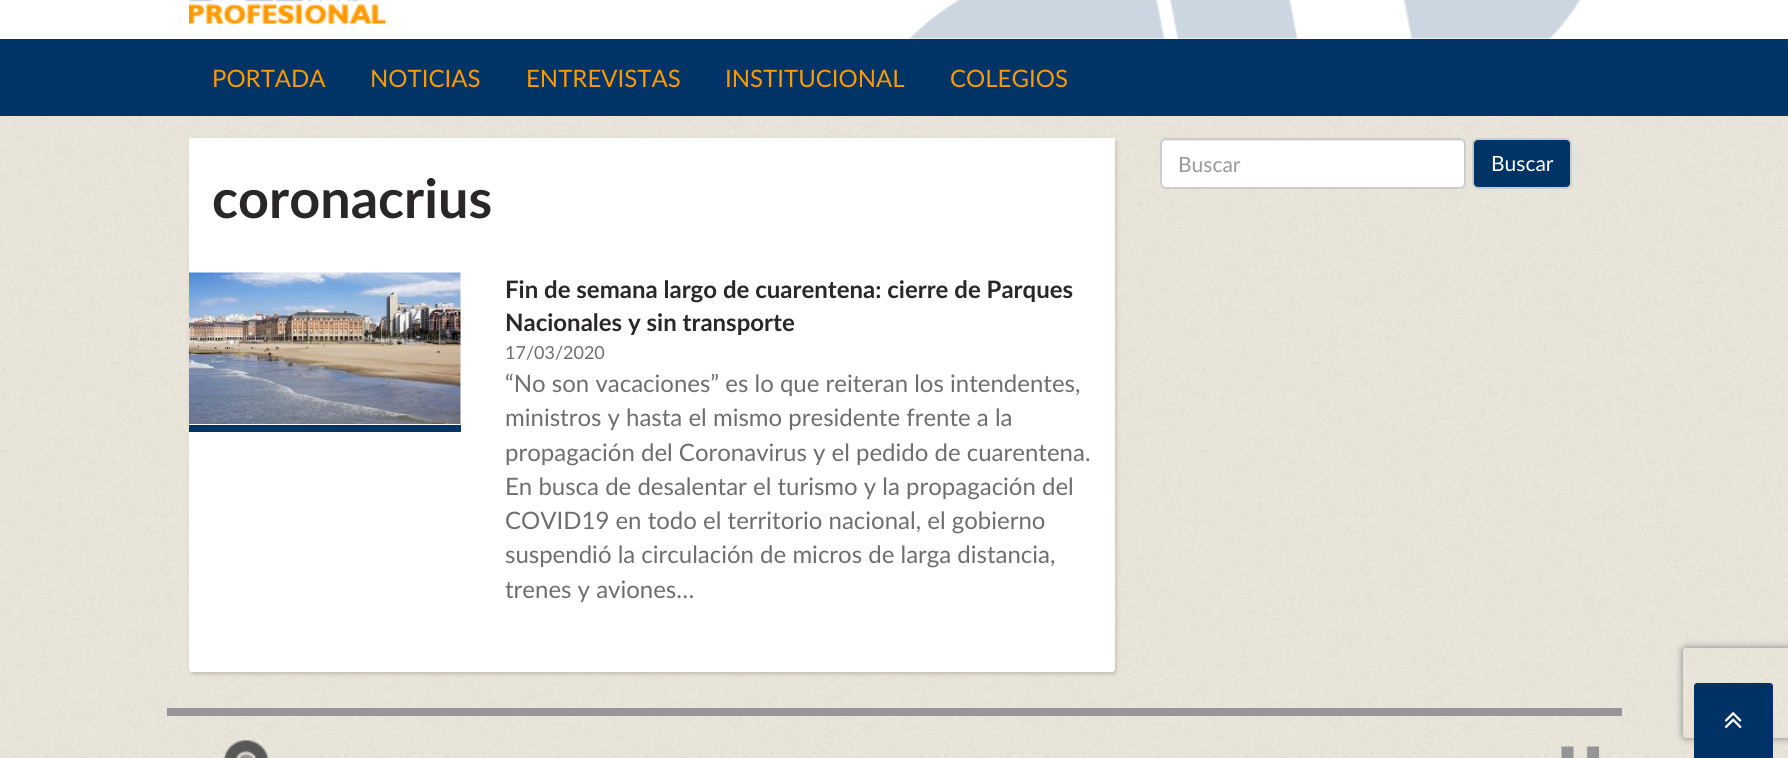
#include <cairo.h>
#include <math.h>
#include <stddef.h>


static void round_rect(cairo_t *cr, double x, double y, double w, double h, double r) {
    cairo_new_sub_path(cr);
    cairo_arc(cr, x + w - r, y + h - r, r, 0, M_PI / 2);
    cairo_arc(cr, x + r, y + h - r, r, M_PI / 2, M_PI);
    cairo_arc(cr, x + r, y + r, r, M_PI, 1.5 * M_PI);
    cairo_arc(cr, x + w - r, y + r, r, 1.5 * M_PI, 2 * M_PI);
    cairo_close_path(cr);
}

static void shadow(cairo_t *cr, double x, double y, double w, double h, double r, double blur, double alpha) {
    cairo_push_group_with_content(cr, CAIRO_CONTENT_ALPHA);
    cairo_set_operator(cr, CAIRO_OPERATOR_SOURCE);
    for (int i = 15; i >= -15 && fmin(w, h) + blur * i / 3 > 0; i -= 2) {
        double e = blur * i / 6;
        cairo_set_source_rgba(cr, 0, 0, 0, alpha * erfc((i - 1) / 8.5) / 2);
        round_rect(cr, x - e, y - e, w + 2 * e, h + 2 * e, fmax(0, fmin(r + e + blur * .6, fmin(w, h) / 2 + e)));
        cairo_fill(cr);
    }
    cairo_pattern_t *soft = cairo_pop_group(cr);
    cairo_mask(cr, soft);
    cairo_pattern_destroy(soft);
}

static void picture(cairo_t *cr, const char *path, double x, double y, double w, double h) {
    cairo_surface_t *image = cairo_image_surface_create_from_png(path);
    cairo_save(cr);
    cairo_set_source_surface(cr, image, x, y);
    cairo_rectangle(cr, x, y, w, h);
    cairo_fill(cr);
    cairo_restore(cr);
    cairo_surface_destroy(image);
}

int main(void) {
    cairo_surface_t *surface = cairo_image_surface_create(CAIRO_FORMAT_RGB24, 1788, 758);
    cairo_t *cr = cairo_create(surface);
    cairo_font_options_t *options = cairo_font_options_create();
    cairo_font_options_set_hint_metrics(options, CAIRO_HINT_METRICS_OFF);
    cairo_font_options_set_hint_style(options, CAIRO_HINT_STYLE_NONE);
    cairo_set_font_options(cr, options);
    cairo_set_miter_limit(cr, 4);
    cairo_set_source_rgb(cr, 1, 1, 1);
    cairo_paint(cr);
    picture(cr, "img1.png", 0, 116, 1788, 642);
    picture(cr, "img2.png", 909, 0, 672, 39);
    picture(cr, "img3.png", 189, 0, 197, 24);
    cairo_set_source_rgb(cr, 0, 0.2, 0.4);
    cairo_rectangle(cr, 0, 39, 1788, 77);
    cairo_fill(cr);
    cairo_select_font_face(cr, "Lato", CAIRO_FONT_SLANT_NORMAL, CAIRO_FONT_WEIGHT_NORMAL);
    cairo_set_font_size(cr, 24);
    cairo_set_source_rgb(cr, 1, 0.6, 0);
    cairo_move_to(cr, 212, 87);
    cairo_show_text(cr, "PORTADA");
    cairo_move_to(cr, 370, 87);
    cairo_show_text(cr, "NOTICIAS");
    cairo_move_to(cr, 526, 87);
    cairo_show_text(cr, "ENTREVISTAS");
    cairo_move_to(cr, 725, 87);
    cairo_show_text(cr, "INSTITUCIONAL");
    cairo_move_to(cr, 950, 87);
    cairo_show_text(cr, "COLEGIOS");
    cairo_set_source_rgb(cr, 1, 1, 1);
    round_rect(cr, 1160, 138, 306, 51, 6);
    cairo_fill(cr);
    cairo_set_source_rgb(cr, 0.925, 0.925, 0.925);
    cairo_new_path(cr);
    cairo_move_to(cr, 1166, 141);
    cairo_line_to(cr, 1460, 141);
    cairo_curve_to(cr, 1462, 141, 1464, 143, 1464, 146);
    cairo_line_to(cr, 1464, 145);
    cairo_curve_to(cr, 1464, 142, 1462, 140, 1459, 140);
    cairo_line_to(cr, 1166, 140);
    cairo_curve_to(cr, 1163, 140, 1161, 142, 1161, 145);
    cairo_line_to(cr, 1161, 146);
    cairo_curve_to(cr, 1161, 143, 1163, 141, 1166, 141);
    cairo_close_path(cr);
    cairo_fill(cr);
    round_rect(cr, 1161, 139, 304, 49, 5);
    cairo_set_source_rgb(cr, 0.8, 0.8, 0.8);
    cairo_stroke(cr);
    cairo_set_font_size(cr, 21);
    cairo_set_source_rgb(cr, 0.6, 0.6, 0.6);
    cairo_move_to(cr, 1178, 172);
    cairo_show_text(cr, "Buscar");
    cairo_set_source_rgb(cr, 0, 0.2, 0.4);
    round_rect(cr, 1473, 139, 98, 49, 5);
    cairo_fill_preserve(cr);
    cairo_set_source_rgb(cr, 0.8, 0.8, 0.8);
    cairo_stroke(cr);
    cairo_set_source_rgb(cr, 1, 1, 1);
    cairo_move_to(cr, 1491, 171);
    cairo_show_text(cr, "Buscar");
    cairo_set_source_rgb(cr, 0.761, 0.737, 0.686);
    shadow(cr, 191, 140, 925, 534, 3, 2, 1);
    cairo_set_source_rgb(cr, 1, 1, 1);
    cairo_new_path(cr);
    cairo_move_to(cr, 189, 138);
    cairo_line_to(cr, 1115, 138);
    cairo_line_to(cr, 1115, 669);
    cairo_curve_to(cr, 1115, 670.5, 1113.5, 672, 1112, 672);
    cairo_line_to(cr, 192, 672);
    cairo_curve_to(cr, 190.5, 672, 189, 670.5, 189, 669);
    cairo_close_path(cr);
    cairo_fill(cr);
    cairo_select_font_face(cr, "Lato", CAIRO_FONT_SLANT_NORMAL, CAIRO_FONT_WEIGHT_BOLD);
    cairo_set_font_size(cr, 54);
    cairo_set_source_rgb(cr, 0.161, 0.153, 0.153);
    cairo_move_to(cr, 212, 218);
    cairo_show_text(cr, "coronacrius");
    cairo_set_source_rgb(cr, 0, 0.2, 0.4);
    cairo_rectangle(cr, 189, 425, 272, 7);
    cairo_fill(cr);
    picture(cr, "img4.png", 189, 272, 272, 152);
    cairo_set_font_size(cr, 24);
    cairo_set_source_rgb(cr, 0.161, 0.153, 0.153);
    cairo_move_to(cr, 505, 298);
    cairo_show_text(cr, "Fin de semana largo de cuarentena: cierre de Parques");
    cairo_move_to(cr, 505, 331);
    cairo_show_text(cr, "Nacionales y sin transporte");
    cairo_select_font_face(cr, "Lato", CAIRO_FONT_SLANT_NORMAL, CAIRO_FONT_WEIGHT_NORMAL);
    cairo_set_font_size(cr, 18);
    cairo_set_source_rgb(cr, 0.431, 0.431, 0.431);
    cairo_move_to(cr, 505, 359);
    cairo_show_text(cr, "17/03/2020");
    cairo_set_font_size(cr, 24);
    cairo_move_to(cr, 505, 392);
    cairo_show_text(cr, "“No son vacaciones” es lo que reiteran los intendentes,");
    cairo_move_to(cr, 505, 426);
    cairo_show_text(cr, "ministros y hasta el mismo presidente frente a la");
    cairo_move_to(cr, 505, 461);
    cairo_show_text(cr, "propagación del Coronavirus y el pedido de cuarentena.");
    cairo_move_to(cr, 505, 495);
    cairo_show_text(cr, "En busca de desalentar el turismo y la propagación del");
    cairo_move_to(cr, 505, 529);
    cairo_show_text(cr, "COVID19 en todo el territorio nacional, el gobierno");
    cairo_move_to(cr, 505, 563);
    cairo_show_text(cr, "suspendió la circulación de micros de larga distancia,");
    cairo_move_to(cr, 505, 598);
    cairo_show_text(cr, "trenes y aviones…");
    cairo_save(cr);
    cairo_set_fill_rule(cr, CAIRO_FILL_RULE_EVEN_ODD);
    cairo_new_path(cr);
    cairo_move_to(cr, 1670, 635);
    cairo_line_to(cr, 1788, 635);
    cairo_line_to(cr, 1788, 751);
    cairo_line_to(cr, 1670, 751);
    cairo_close_path(cr);
    cairo_move_to(cr, 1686, 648);
    cairo_line_to(cr, 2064, 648);
    cairo_curve_to(cr, 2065.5, 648, 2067, 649.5, 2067, 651);
    cairo_line_to(cr, 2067, 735);
    cairo_curve_to(cr, 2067, 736.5, 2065.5, 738, 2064, 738);
    cairo_line_to(cr, 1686, 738);
    cairo_curve_to(cr, 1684.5, 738, 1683, 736.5, 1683, 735);
    cairo_line_to(cr, 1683, 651);
    cairo_curve_to(cr, 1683, 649.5, 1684.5, 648, 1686, 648);
    cairo_close_path(cr);
    cairo_clip(cr);
    cairo_set_source_rgb(cr, 0.502, 0.502, 0.502);
    shadow(cr, 1683, 648, 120, 90, 3, 4, 1);
    cairo_restore(cr);
    cairo_set_source_rgb(cr, 0.588, 0.588, 0.588);
    cairo_rectangle(cr, 167, 708, 1455, 8);
    cairo_fill(cr);
    picture(cr, "img5.png", 223, 740, 46, 18);
    picture(cr, "img6.png", 1561, 746, 38, 12);
    cairo_set_source_rgb(cr, 0, 0.196, 0.396);
    cairo_new_path(cr);
    cairo_move_to(cr, 1697, 683);
    cairo_line_to(cr, 1770, 683);
    cairo_curve_to(cr, 1771.5, 683, 1773, 684.5, 1773, 686);
    cairo_line_to(cr, 1773, 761);
    cairo_line_to(cr, 1694, 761);
    cairo_line_to(cr, 1694, 686);
    cairo_curve_to(cr, 1694, 684.5, 1695.5, 683, 1697, 683);
    cairo_close_path(cr);
    cairo_fill(cr);
    picture(cr, "img7.png", 1724, 712, 18, 17);
    cairo_surface_write_to_png(surface, "page.png");
    cairo_font_options_destroy(options);
    cairo_destroy(cr);
    cairo_surface_destroy(surface);
    return 0;
}
